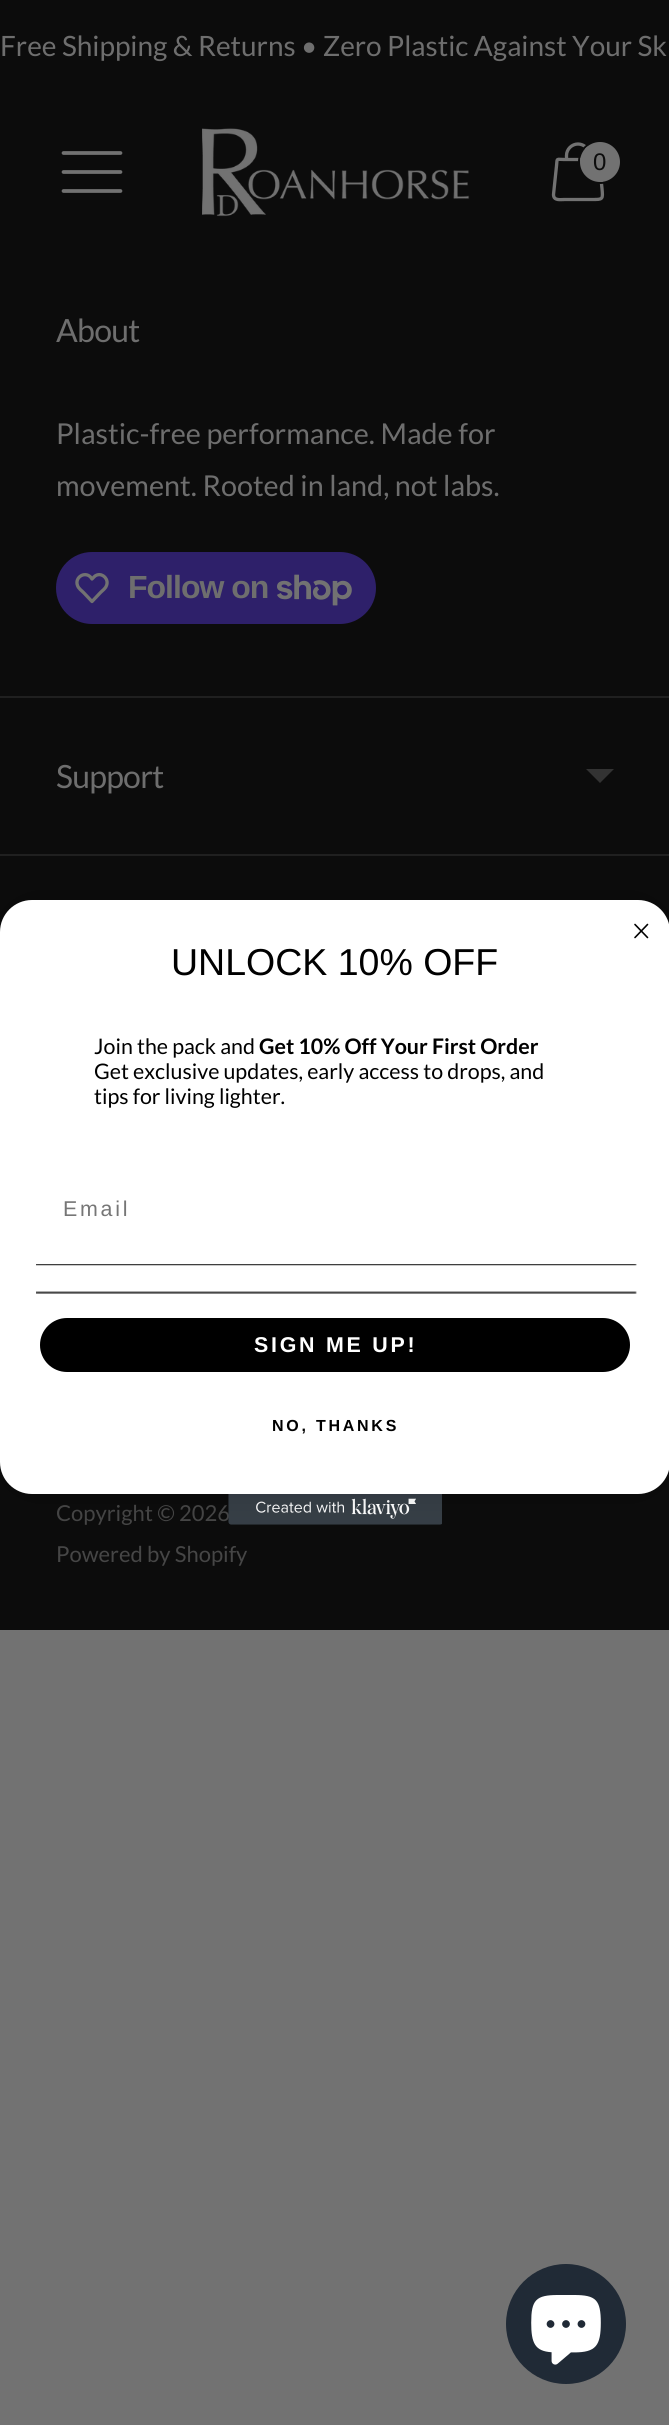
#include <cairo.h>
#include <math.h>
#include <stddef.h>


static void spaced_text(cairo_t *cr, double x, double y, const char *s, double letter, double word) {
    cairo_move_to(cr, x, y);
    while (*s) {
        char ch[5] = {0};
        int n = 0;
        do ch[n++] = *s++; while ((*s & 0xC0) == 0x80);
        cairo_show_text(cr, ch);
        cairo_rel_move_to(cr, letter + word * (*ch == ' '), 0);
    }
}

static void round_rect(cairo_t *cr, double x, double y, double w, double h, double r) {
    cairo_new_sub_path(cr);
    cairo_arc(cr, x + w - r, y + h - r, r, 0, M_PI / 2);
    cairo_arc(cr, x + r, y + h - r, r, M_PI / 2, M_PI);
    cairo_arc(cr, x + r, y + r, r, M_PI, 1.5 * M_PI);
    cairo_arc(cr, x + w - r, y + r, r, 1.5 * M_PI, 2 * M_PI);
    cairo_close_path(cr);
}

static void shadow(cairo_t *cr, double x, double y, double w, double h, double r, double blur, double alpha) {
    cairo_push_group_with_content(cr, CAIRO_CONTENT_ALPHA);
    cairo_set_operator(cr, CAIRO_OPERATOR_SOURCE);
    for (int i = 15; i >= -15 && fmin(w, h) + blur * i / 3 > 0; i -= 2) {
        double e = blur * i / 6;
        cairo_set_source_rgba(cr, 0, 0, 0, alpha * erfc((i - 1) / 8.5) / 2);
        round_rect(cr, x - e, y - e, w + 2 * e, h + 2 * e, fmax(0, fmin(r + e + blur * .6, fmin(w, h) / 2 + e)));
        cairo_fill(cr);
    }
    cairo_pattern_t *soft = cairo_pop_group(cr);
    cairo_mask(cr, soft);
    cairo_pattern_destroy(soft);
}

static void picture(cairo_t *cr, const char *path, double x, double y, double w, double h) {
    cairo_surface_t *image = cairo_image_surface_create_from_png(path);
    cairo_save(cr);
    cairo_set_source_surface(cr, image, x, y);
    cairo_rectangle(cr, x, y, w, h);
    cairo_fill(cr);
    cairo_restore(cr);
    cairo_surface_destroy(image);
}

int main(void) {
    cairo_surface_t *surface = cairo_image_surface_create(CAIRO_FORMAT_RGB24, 669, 2425);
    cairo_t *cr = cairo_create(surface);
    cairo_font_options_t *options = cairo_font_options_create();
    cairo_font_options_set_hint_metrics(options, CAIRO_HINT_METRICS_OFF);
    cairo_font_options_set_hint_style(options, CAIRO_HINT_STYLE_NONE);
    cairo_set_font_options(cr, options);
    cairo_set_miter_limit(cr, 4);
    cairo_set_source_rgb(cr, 0.447, 0.447, 0.447);
    cairo_paint(cr);
    cairo_set_source_rgb(cr, 0.047, 0.047, 0.047);
    cairo_rectangle(cr, 0, 0, 669, 252);
    cairo_fill(cr);
    cairo_select_font_face(cr, "Lato", CAIRO_FONT_SLANT_NORMAL, CAIRO_FONT_WEIGHT_NORMAL);
    cairo_set_font_size(cr, 28);
    cairo_set_source_rgb(cr, 0.431, 0.431, 0.431);
    cairo_move_to(cr, 0, 56);
    cairo_show_text(cr, "Free Shipping & Returns • Zero Plastic Against Your Sk");
    cairo_new_path(cr);
    cairo_move_to(cr, 63.5, 172);
    cairo_line_to(cr, 120.5, 172);
    cairo_move_to(cr, 63.5, 153);
    cairo_line_to(cr, 120.5, 153);
    cairo_move_to(cr, 63.5, 191);
    cairo_line_to(cr, 120.5, 191);
    cairo_set_source_rgb(cr, 0.447, 0.447, 0.447);
    cairo_set_line_width(cr, 3.7);
    cairo_set_line_cap(cr, CAIRO_LINE_CAP_ROUND);
    cairo_set_line_join(cr, CAIRO_LINE_JOIN_ROUND);
    cairo_stroke(cr);
    picture(cr, "img1.png", 202, 128, 268, 89);
    cairo_new_path(cr);
    cairo_move_to(cr, 599, 160);
    cairo_line_to(cr, 602, 188.5);
    cairo_curve_to(cr, 603, 199.5, 603, 199.5, 592, 199.5);
    cairo_line_to(cr, 564.5, 199.5);
    cairo_curve_to(cr, 560.5, 199.5, 553.5, 201, 553.5, 194.5);
    cairo_line_to(cr, 556.5, 166);
    cairo_curve_to(cr, 557.5, 157.5, 555.5, 159.5, 564.5, 159.5);
    cairo_line_to(cr, 578, 159.5);
    cairo_curve_to(cr, 589.5, 159.5, 599, 158.5, 599, 160);
    cairo_close_path(cr);
    cairo_move_to(cr, 589.5, 159.5);
    cairo_line_to(cr, 589.5, 155.5);
    cairo_curve_to(cr, 589.5, 149, 584, 144, 578, 144);
    cairo_curve_to(cr, 572, 144, 566.5, 149, 566.5, 155.5);
    cairo_line_to(cr, 566.5, 159.5);
    cairo_set_line_width(cr, 3.3);
    cairo_stroke(cr);
    cairo_arc(cr, 600, 162, 21, 0, 2 * M_PI);
    cairo_set_source_rgb(cr, 0.047, 0.047, 0.047);
    cairo_set_line_width(cr, 2);
    cairo_set_line_cap(cr, CAIRO_LINE_CAP_BUTT);
    cairo_set_line_join(cr, CAIRO_LINE_JOIN_MITER);
    cairo_stroke(cr);
    cairo_set_source_rgb(cr, 0.447, 0.447, 0.447);
    cairo_arc(cr, 600, 162, 20, 0, 2 * M_PI);
    cairo_fill(cr);
    cairo_select_font_face(cr, "Liberation Sans", CAIRO_FONT_SLANT_NORMAL, CAIRO_FONT_WEIGHT_NORMAL);
    cairo_set_font_size(cr, 24);
    cairo_set_source_rgb(cr, 0.047, 0.047, 0.047);
    cairo_move_to(cr, 593, 170);
    cairo_show_text(cr, "0");
    cairo_rectangle(cr, 0, 252, 669, 1378);
    cairo_fill(cr);
    cairo_set_source_rgb(cr, 0.125, 0.125, 0.125);
    cairo_rectangle(cr, 0, 696, 669, 2);
    cairo_fill(cr);
    cairo_select_font_face(cr, "Lato", CAIRO_FONT_SLANT_NORMAL, CAIRO_FONT_WEIGHT_NORMAL);
    cairo_set_font_size(cr, 32);
    cairo_set_source_rgb(cr, 0.431, 0.431, 0.431);
    spaced_text(cr, 56, 342, "About", -0.75, 0);
    cairo_set_font_size(cr, 28.75);
    cairo_move_to(cr, 56, 444);
    cairo_show_text(cr, "Plastic-free performance. Made for");
    cairo_move_to(cr, 56, 496);
    cairo_show_text(cr, "movement. Rooted in land, not labs.");
    cairo_set_source_rgb(cr, 0.18, 0.125, 0.416);
    round_rect(cr, 56, 552, 320, 72, 36);
    cairo_fill(cr);
    cairo_new_path(cr);
    cairo_move_to(cr, 90.5, 577);
    cairo_line_to(cr, 92, 579);
    cairo_curve_to(cr, 93.5, 577.5, 95, 575.5, 97, 575);
    cairo_curve_to(cr, 103, 573, 109, 579.5, 106.5, 585.5);
    cairo_curve_to(cr, 105.5, 588.5, 102.5, 590.5, 100.5, 592.5);
    cairo_line_to(cr, 92, 601.5);
    cairo_line_to(cr, 83.5, 592.5);
    cairo_curve_to(cr, 81.5, 590.5, 78.5, 588.5, 77.5, 585.5);
    cairo_curve_to(cr, 74.5, 577.5, 84.5, 571, 90.5, 577);
    cairo_close_path(cr);
    cairo_set_source_rgb(cr, 0.447, 0.447, 0.447);
    cairo_set_line_width(cr, 3.3);
    cairo_set_line_join(cr, CAIRO_LINE_JOIN_ROUND);
    cairo_stroke(cr);
    cairo_select_font_face(cr, "Liberation Sans", CAIRO_FONT_SLANT_NORMAL, CAIRO_FONT_WEIGHT_BOLD);
    cairo_set_font_size(cr, 32);
    cairo_set_source_rgb(cr, 0.431, 0.431, 0.431);
    spaced_text(cr, 128, 598, "Follow on", -1, 0);
    picture(cr, "img2.png", 277, 574, 75, 32);
    cairo_set_source_rgb(cr, 0.125, 0.125, 0.125);
    cairo_rectangle(cr, 0, 854, 669, 2);
    cairo_fill(cr);
    cairo_select_font_face(cr, "Lato", CAIRO_FONT_SLANT_NORMAL, CAIRO_FONT_WEIGHT_NORMAL);
    cairo_set_source_rgb(cr, 0.431, 0.431, 0.431);
    spaced_text(cr, 56, 788, "Support", -0.75, 0);
    cairo_set_source_rgb(cr, 0.2, 0.2, 0.2);
    cairo_new_path(cr);
    cairo_move_to(cr, 586, 769);
    cairo_line_to(cr, 600, 783);
    cairo_line_to(cr, 614, 769);
    cairo_close_path(cr);
    cairo_fill(cr);
    cairo_set_font_size(cr, 22);
    cairo_set_source_rgb(cr, 0.275, 0.275, 0.275);
    cairo_move_to(cr, 56, 1521);
    cairo_show_text(cr, "Copyright © 2026");
    cairo_move_to(cr, 56, 1562);
    cairo_show_text(cr, "Powered by Shopify");
    picture(cr, "img5.png", 228, 1494, 214, 31);
    cairo_set_source_rgb(cr, 0, 0, 0);
    shadow(cr, 0, 900, 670, 594, 32, 20, 0.15);
    cairo_set_source_rgb(cr, 1, 1, 1);
    round_rect(cr, 0, 900, 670, 594, 32);
    cairo_fill(cr);
    cairo_new_path(cr);
    cairo_move_to(cr, 635, 924.5);
    cairo_line_to(cr, 647.5, 937.5);
    cairo_move_to(cr, 635, 937.5);
    cairo_line_to(cr, 647.5, 924.5);
    cairo_close_path(cr);
    cairo_set_source_rgb(cr, 0, 0, 0);
    cairo_set_line_width(cr, 1.6);
    cairo_set_line_cap(cr, CAIRO_LINE_CAP_ROUND);
    cairo_stroke(cr);
    cairo_select_font_face(cr, "Liberation Sans", CAIRO_FONT_SLANT_NORMAL, CAIRO_FONT_WEIGHT_NORMAL);
    cairo_set_font_size(cr, 37.5);
    cairo_move_to(cr, 171, 975);
    cairo_show_text(cr, "UNLOCK 10% OFF");
    cairo_select_font_face(cr, "Lato", CAIRO_FONT_SLANT_NORMAL, CAIRO_FONT_WEIGHT_NORMAL);
    cairo_set_font_size(cr, 21.4);
    cairo_move_to(cr, 94, 1054);
    cairo_show_text(cr, "Join the pack and");
    cairo_select_font_face(cr, "Lato", CAIRO_FONT_SLANT_NORMAL, CAIRO_FONT_WEIGHT_BOLD);
    cairo_move_to(cr, 259, 1054);
    cairo_show_text(cr, "Get 10% Off Your First Order");
    cairo_select_font_face(cr, "Lato", CAIRO_FONT_SLANT_NORMAL, CAIRO_FONT_WEIGHT_NORMAL);
    cairo_move_to(cr, 94, 1079);
    cairo_show_text(cr, "Get exclusive updates, early access to drops, and");
    cairo_move_to(cr, 94, 1104);
    cairo_show_text(cr, "tips for living lighter.");
    cairo_select_font_face(cr, "Liberation Sans", CAIRO_FONT_SLANT_NORMAL, CAIRO_FONT_WEIGHT_NORMAL);
    cairo_set_source_rgb(cr, 0.463, 0.463, 0.463);
    spaced_text(cr, 63, 1216, "Email", 2.75, 0);
    picture(cr, "img3.png", 36, 1264, 601, 2);
    picture(cr, "img4.png", 36, 1291, 601, 3);
    cairo_set_source_rgb(cr, 0, 0, 0);
    round_rect(cr, 40, 1318, 590, 54, 27);
    cairo_fill(cr);
    cairo_select_font_face(cr, "Liberation Sans", CAIRO_FONT_SLANT_NORMAL, CAIRO_FONT_WEIGHT_BOLD);
    cairo_set_source_rgb(cr, 1, 1, 1);
    spaced_text(cr, 254, 1352, "SIGN ME UP!", 2.75, 0);
    cairo_set_font_size(cr, 16);
    cairo_set_source_rgb(cr, 0, 0, 0);
    spaced_text(cr, 272, 1431, "NO, THANKS", 2.75, 0);
    cairo_set_source_rgb(cr, 0.125, 0.165, 0.212);
    cairo_new_path(cr);
    cairo_arc(cr, 566, 2324, 60, 0, 2 * M_PI);
    cairo_fill(cr);
    picture(cr, "img6.png", 531, 2295, 70, 70);
    cairo_surface_write_to_png(surface, "page.png");
    cairo_font_options_destroy(options);
    cairo_destroy(cr);
    cairo_surface_destroy(surface);
    return 0;
}
